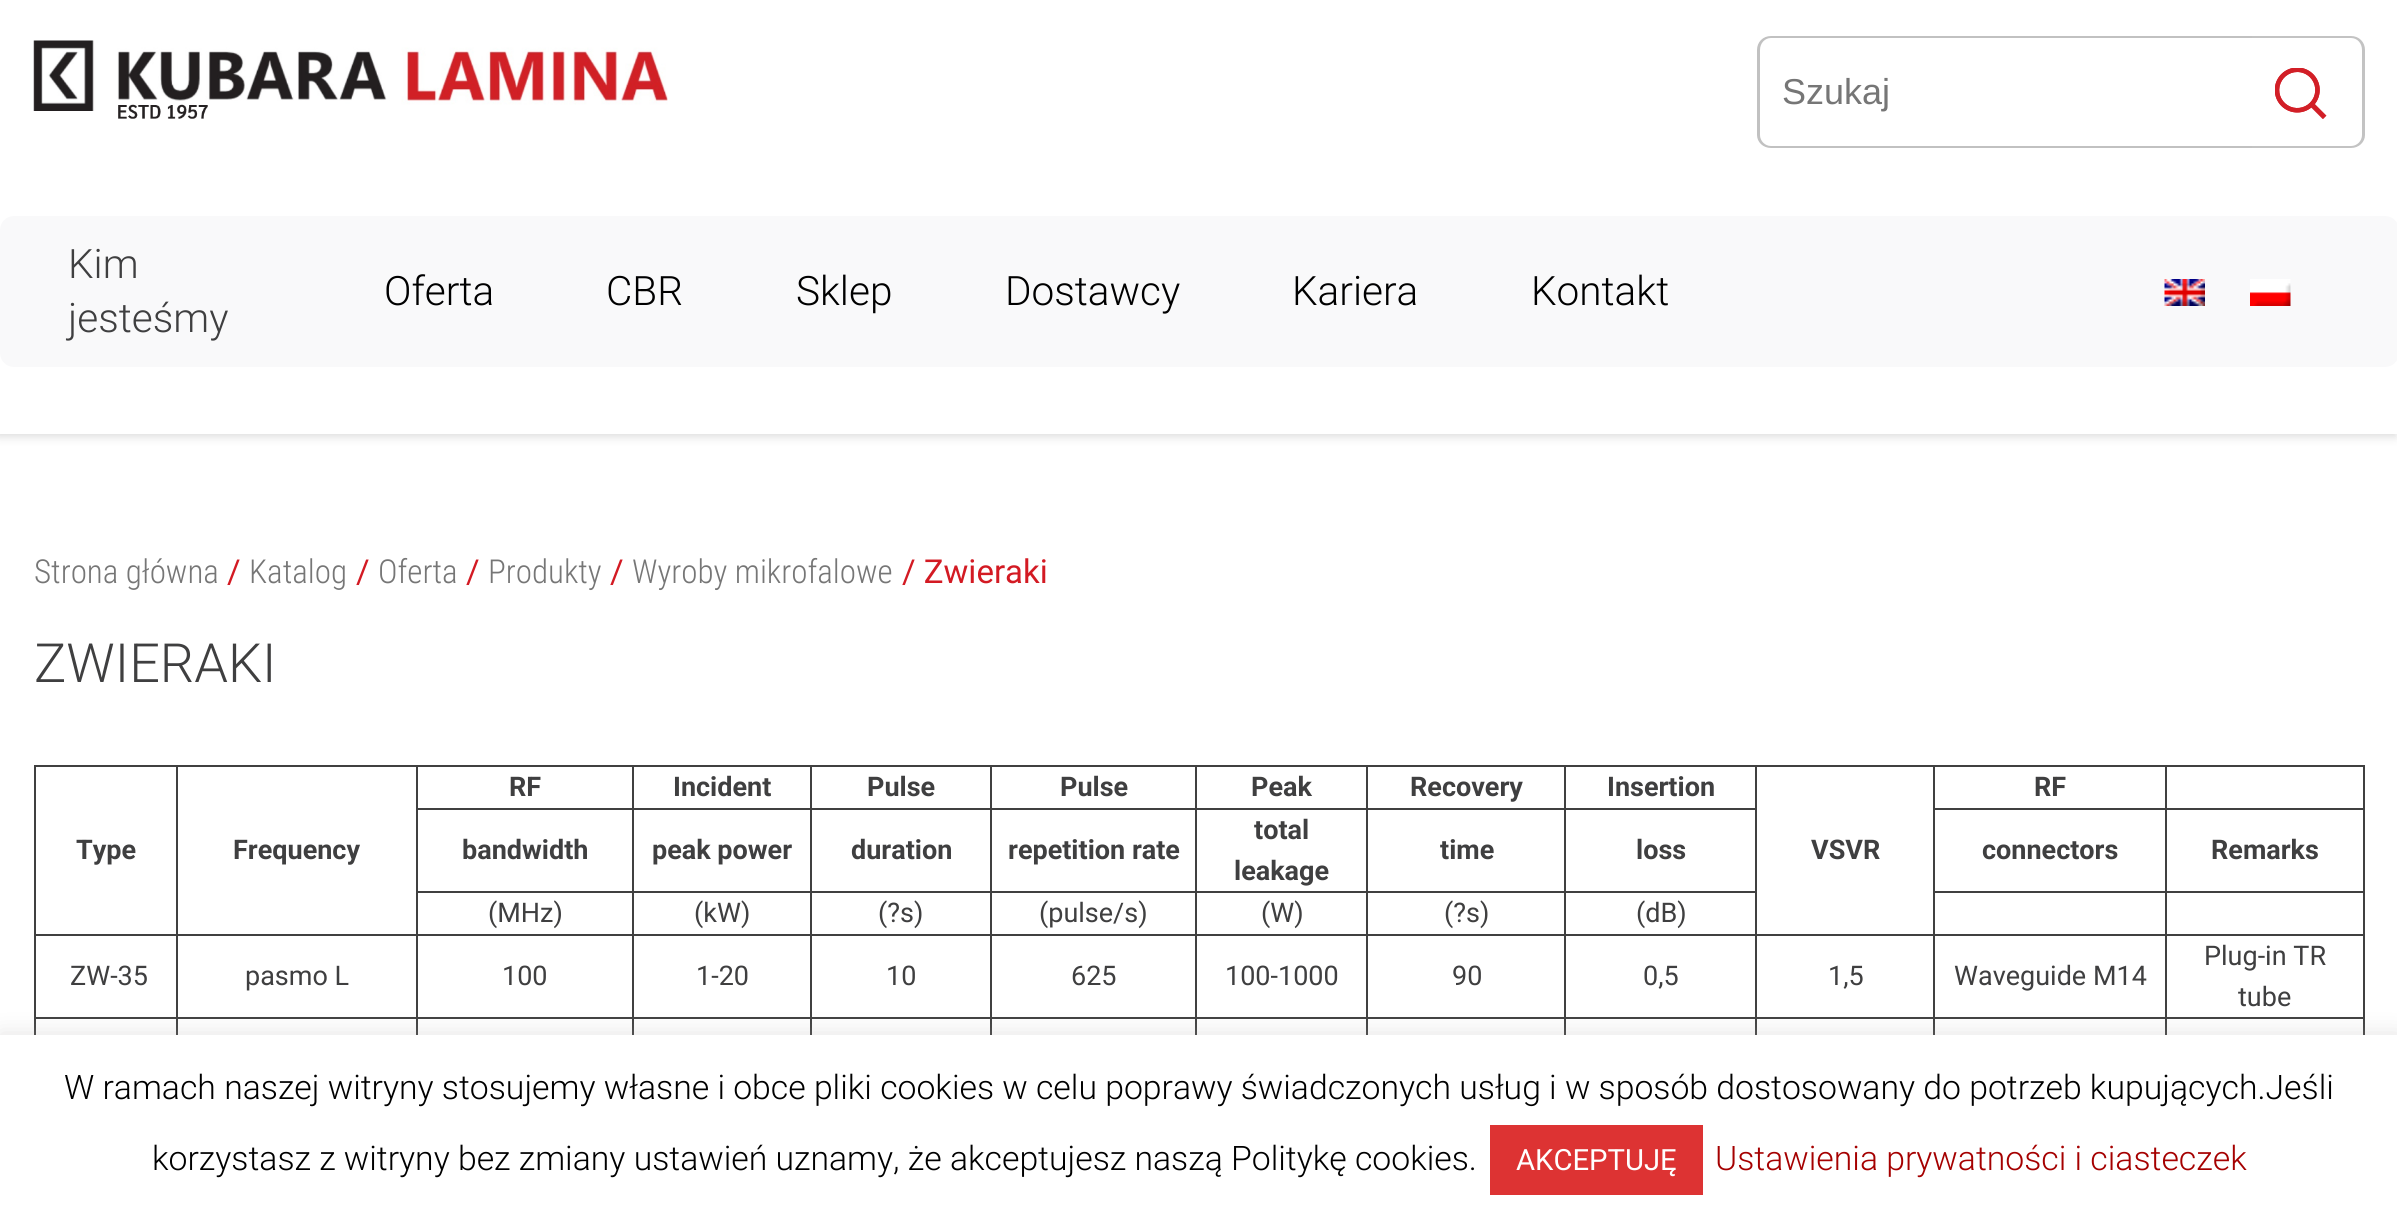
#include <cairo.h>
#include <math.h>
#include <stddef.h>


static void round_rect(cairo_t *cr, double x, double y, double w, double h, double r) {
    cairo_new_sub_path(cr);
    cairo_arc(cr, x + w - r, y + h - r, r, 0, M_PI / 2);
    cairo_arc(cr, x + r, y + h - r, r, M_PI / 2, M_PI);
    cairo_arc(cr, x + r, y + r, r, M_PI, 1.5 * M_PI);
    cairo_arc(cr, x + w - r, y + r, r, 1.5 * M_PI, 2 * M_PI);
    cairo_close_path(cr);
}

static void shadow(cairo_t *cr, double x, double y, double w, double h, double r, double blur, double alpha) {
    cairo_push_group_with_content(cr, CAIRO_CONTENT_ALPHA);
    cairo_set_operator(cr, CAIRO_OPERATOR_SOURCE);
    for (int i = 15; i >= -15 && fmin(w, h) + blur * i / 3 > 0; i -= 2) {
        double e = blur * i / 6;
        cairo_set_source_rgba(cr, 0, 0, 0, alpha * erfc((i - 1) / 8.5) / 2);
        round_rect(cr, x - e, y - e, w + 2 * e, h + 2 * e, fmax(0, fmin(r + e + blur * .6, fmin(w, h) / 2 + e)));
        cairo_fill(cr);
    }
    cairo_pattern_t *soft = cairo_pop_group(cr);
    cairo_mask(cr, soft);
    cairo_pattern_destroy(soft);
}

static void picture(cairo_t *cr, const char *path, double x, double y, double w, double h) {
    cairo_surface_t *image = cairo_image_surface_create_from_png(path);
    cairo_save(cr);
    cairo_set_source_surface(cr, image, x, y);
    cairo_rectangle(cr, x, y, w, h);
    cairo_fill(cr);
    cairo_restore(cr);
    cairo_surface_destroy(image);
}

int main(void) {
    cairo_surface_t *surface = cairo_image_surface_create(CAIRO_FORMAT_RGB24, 2397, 1232);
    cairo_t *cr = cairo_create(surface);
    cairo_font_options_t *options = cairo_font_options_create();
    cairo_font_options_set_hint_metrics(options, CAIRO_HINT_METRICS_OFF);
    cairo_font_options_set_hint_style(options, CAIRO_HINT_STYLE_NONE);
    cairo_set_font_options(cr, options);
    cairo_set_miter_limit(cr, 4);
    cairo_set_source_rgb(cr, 1, 1, 1);
    cairo_paint(cr);
    cairo_save(cr);
    cairo_rectangle(cr, 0, 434, 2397, 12);
    cairo_clip(cr);
    cairo_set_source_rgb(cr, 0.871, 0.871, 0.871);
    shadow(cr, -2, 2, 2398, 435, 0, 4.5, 1);
    cairo_restore(cr);
    picture(cr, "img1.png", 33, 40, 635, 79);
    cairo_set_source_rgb(cr, 0.757, 0.757, 0.757);
    cairo_set_fill_rule(cr, CAIRO_FILL_RULE_EVEN_ODD);
    cairo_new_path(cr);
    cairo_move_to(cr, 1771, 36);
    cairo_line_to(cr, 2252, 36);
    cairo_line_to(cr, 2252, 148);
    cairo_line_to(cr, 1771, 148);
    cairo_curve_to(cr, 1763, 148, 1757, 142, 1757, 135);
    cairo_line_to(cr, 1757, 50);
    cairo_curve_to(cr, 1757, 42, 1763, 36, 1771, 36);
    cairo_close_path(cr);
    cairo_move_to(cr, 1771, 38);
    cairo_line_to(cr, 2252, 38);
    cairo_line_to(cr, 2252, 146);
    cairo_line_to(cr, 1771, 146);
    cairo_curve_to(cr, 1765, 146, 1760, 141, 1760, 135);
    cairo_line_to(cr, 1760, 50);
    cairo_curve_to(cr, 1760, 43, 1765, 38, 1771, 38);
    cairo_close_path(cr);
    cairo_fill(cr);
    cairo_select_font_face(cr, "Liberation Sans", CAIRO_FONT_SLANT_NORMAL, CAIRO_FONT_WEIGHT_NORMAL);
    cairo_set_font_size(cr, 36);
    cairo_set_source_rgb(cr, 0.463, 0.463, 0.463);
    cairo_move_to(cr, 1782, 104);
    cairo_show_text(cr, "Szukaj");
    cairo_set_source_rgb(cr, 0.765, 0.765, 0.765);
    cairo_new_path(cr);
    cairo_move_to(cr, 2252, 36);
    cairo_line_to(cr, 2351, 36);
    cairo_curve_to(cr, 2359, 36, 2365, 42, 2365, 50);
    cairo_line_to(cr, 2365, 135);
    cairo_curve_to(cr, 2365, 142, 2359, 148, 2351, 148);
    cairo_line_to(cr, 2252, 148);
    cairo_close_path(cr);
    cairo_move_to(cr, 2252, 38);
    cairo_line_to(cr, 2351, 38);
    cairo_curve_to(cr, 2357, 38, 2362, 43, 2362, 50);
    cairo_line_to(cr, 2362, 135);
    cairo_curve_to(cr, 2362, 141, 2357, 146, 2351, 146);
    cairo_line_to(cr, 2252, 146);
    cairo_close_path(cr);
    cairo_fill(cr);
    picture(cr, "img2.png", 2275, 68, 52, 51);
    cairo_set_source_rgb(cr, 0.973, 0.976, 0.98);
    round_rect(cr, 0, 216, 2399, 151, 14);
    cairo_fill(cr);
    cairo_select_font_face(cr, "Roboto Light", CAIRO_FONT_SLANT_NORMAL, CAIRO_FONT_WEIGHT_NORMAL);
    cairo_set_font_size(cr, 40.5);
    cairo_set_source_rgb(cr, 0.247, 0.247, 0.251);
    cairo_move_to(cr, 68, 278);
    cairo_show_text(cr, "Kim");
    cairo_move_to(cr, 68, 332);
    cairo_show_text(cr, "jesteśmy");
    cairo_set_source_rgb(cr, 0, 0, 0);
    cairo_move_to(cr, 384, 305);
    cairo_show_text(cr, "Oferta");
    cairo_move_to(cr, 606, 305);
    cairo_show_text(cr, "CBR");
    cairo_move_to(cr, 796, 305);
    cairo_show_text(cr, "Sklep");
    cairo_move_to(cr, 1005, 305);
    cairo_show_text(cr, "Dostawcy");
    cairo_move_to(cr, 1292, 305);
    cairo_show_text(cr, "Kariera");
    cairo_move_to(cr, 1531, 305);
    cairo_show_text(cr, "Kontakt");
    picture(cr, "img3.png", 2164, 279, 41, 27);
    picture(cr, "img4.png", 2250, 279, 41, 27);
    cairo_select_font_face(cr, "Roboto Condensed Light", CAIRO_FONT_SLANT_NORMAL, CAIRO_FONT_WEIGHT_NORMAL);
    cairo_set_font_size(cr, 33);
    cairo_set_source_rgb(cr, 0.463, 0.463, 0.463);
    cairo_move_to(cr, 34, 583);
    cairo_show_text(cr, "Strona główna");
    cairo_select_font_face(cr, "Roboto", CAIRO_FONT_SLANT_NORMAL, CAIRO_FONT_WEIGHT_NORMAL);
    cairo_set_source_rgb(cr, 0.827, 0.102, 0.137);
    cairo_move_to(cr, 227, 583);
    cairo_show_text(cr, "/");
    cairo_select_font_face(cr, "Roboto Condensed Light", CAIRO_FONT_SLANT_NORMAL, CAIRO_FONT_WEIGHT_NORMAL);
    cairo_set_source_rgb(cr, 0.463, 0.463, 0.463);
    cairo_move_to(cr, 249, 583);
    cairo_show_text(cr, "Katalog");
    cairo_select_font_face(cr, "Roboto", CAIRO_FONT_SLANT_NORMAL, CAIRO_FONT_WEIGHT_NORMAL);
    cairo_set_source_rgb(cr, 0.827, 0.102, 0.137);
    cairo_move_to(cr, 356, 583);
    cairo_show_text(cr, "/");
    cairo_select_font_face(cr, "Roboto Condensed Light", CAIRO_FONT_SLANT_NORMAL, CAIRO_FONT_WEIGHT_NORMAL);
    cairo_set_source_rgb(cr, 0.463, 0.463, 0.463);
    cairo_move_to(cr, 378, 583);
    cairo_show_text(cr, "Oferta");
    cairo_select_font_face(cr, "Roboto", CAIRO_FONT_SLANT_NORMAL, CAIRO_FONT_WEIGHT_NORMAL);
    cairo_set_source_rgb(cr, 0.827, 0.102, 0.137);
    cairo_move_to(cr, 466, 583);
    cairo_show_text(cr, "/");
    cairo_select_font_face(cr, "Roboto Condensed Light", CAIRO_FONT_SLANT_NORMAL, CAIRO_FONT_WEIGHT_NORMAL);
    cairo_set_source_rgb(cr, 0.463, 0.463, 0.463);
    cairo_move_to(cr, 488, 583);
    cairo_show_text(cr, "Produkty");
    cairo_select_font_face(cr, "Roboto", CAIRO_FONT_SLANT_NORMAL, CAIRO_FONT_WEIGHT_NORMAL);
    cairo_set_source_rgb(cr, 0.827, 0.102, 0.137);
    cairo_move_to(cr, 610, 583);
    cairo_show_text(cr, "/");
    cairo_select_font_face(cr, "Roboto Condensed Light", CAIRO_FONT_SLANT_NORMAL, CAIRO_FONT_WEIGHT_NORMAL);
    cairo_set_source_rgb(cr, 0.463, 0.463, 0.463);
    cairo_move_to(cr, 632, 583);
    cairo_show_text(cr, "Wyroby mikrofalowe");
    cairo_select_font_face(cr, "Roboto", CAIRO_FONT_SLANT_NORMAL, CAIRO_FONT_WEIGHT_NORMAL);
    cairo_set_source_rgb(cr, 0.827, 0.102, 0.137);
    cairo_move_to(cr, 902, 583);
    cairo_show_text(cr, "/ Zwieraki");
    cairo_select_font_face(cr, "Roboto Light", CAIRO_FONT_SLANT_NORMAL, CAIRO_FONT_WEIGHT_NORMAL);
    cairo_set_font_size(cr, 54);
    cairo_set_source_rgb(cr, 0.247, 0.247, 0.251);
    cairo_move_to(cr, 34, 682);
    cairo_show_text(cr, "ZWIERAKI");
    cairo_set_source_rgb(cr, 0.251, 0.251, 0.251);
    cairo_rectangle(cr, 2165, 765, 200, 2);
    cairo_fill(cr);
    cairo_rectangle(cr, 2165, 808, 200, 2);
    cairo_fill(cr);
    cairo_rectangle(cr, 2165, 891, 200, 2);
    cairo_fill(cr);
    cairo_rectangle(cr, 2165, 934, 200, 2);
    cairo_fill(cr);
    cairo_rectangle(cr, 2165, 1017, 200, 2);
    cairo_fill(cr);
    cairo_rectangle(cr, 2165, 1017, 2, 18);
    cairo_fill(cr);
    cairo_rectangle(cr, 1933, 1017, 234, 2);
    cairo_fill(cr);
    cairo_rectangle(cr, 2165, 934, 2, 85);
    cairo_fill(cr);
    cairo_rectangle(cr, 1933, 934, 234, 2);
    cairo_fill(cr);
    cairo_rectangle(cr, 2165, 891, 2, 45);
    cairo_fill(cr);
    cairo_rectangle(cr, 1933, 891, 234, 2);
    cairo_fill(cr);
    cairo_rectangle(cr, 2165, 808, 2, 85);
    cairo_fill(cr);
    cairo_rectangle(cr, 1933, 808, 234, 2);
    cairo_fill(cr);
    cairo_rectangle(cr, 2165, 765, 2, 45);
    cairo_fill(cr);
    cairo_rectangle(cr, 1933, 765, 234, 2);
    cairo_fill(cr);
    cairo_rectangle(cr, 1933, 1017, 2, 18);
    cairo_fill(cr);
    cairo_rectangle(cr, 1755, 1017, 180, 2);
    cairo_fill(cr);
    cairo_rectangle(cr, 1933, 934, 2, 85);
    cairo_fill(cr);
    cairo_rectangle(cr, 1755, 934, 180, 2);
    cairo_fill(cr);
    cairo_rectangle(cr, 1933, 891, 2, 45);
    cairo_fill(cr);
    cairo_rectangle(cr, 1933, 808, 2, 85);
    cairo_fill(cr);
    cairo_rectangle(cr, 1933, 765, 2, 45);
    cairo_fill(cr);
    cairo_rectangle(cr, 1755, 765, 180, 2);
    cairo_fill(cr);
    cairo_rectangle(cr, 1564, 808, 193, 2);
    cairo_fill(cr);
    cairo_rectangle(cr, 1564, 891, 193, 2);
    cairo_fill(cr);
    cairo_rectangle(cr, 1755, 1017, 2, 18);
    cairo_fill(cr);
    cairo_rectangle(cr, 1564, 1017, 193, 2);
    cairo_fill(cr);
    cairo_rectangle(cr, 1755, 934, 2, 85);
    cairo_fill(cr);
    cairo_rectangle(cr, 1564, 934, 193, 2);
    cairo_fill(cr);
    cairo_rectangle(cr, 1755, 765, 2, 171);
    cairo_fill(cr);
    cairo_rectangle(cr, 1564, 765, 193, 2);
    cairo_fill(cr);
    cairo_rectangle(cr, 1564, 1017, 2, 18);
    cairo_fill(cr);
    cairo_rectangle(cr, 1366, 1017, 200, 2);
    cairo_fill(cr);
    cairo_rectangle(cr, 1564, 934, 2, 85);
    cairo_fill(cr);
    cairo_rectangle(cr, 1366, 934, 200, 2);
    cairo_fill(cr);
    cairo_rectangle(cr, 1564, 891, 2, 45);
    cairo_fill(cr);
    cairo_rectangle(cr, 1366, 891, 200, 2);
    cairo_fill(cr);
    cairo_rectangle(cr, 1564, 808, 2, 85);
    cairo_fill(cr);
    cairo_rectangle(cr, 1366, 808, 200, 2);
    cairo_fill(cr);
    cairo_rectangle(cr, 1564, 765, 2, 45);
    cairo_fill(cr);
    cairo_rectangle(cr, 1366, 765, 200, 2);
    cairo_fill(cr);
    cairo_rectangle(cr, 1366, 1017, 2, 18);
    cairo_fill(cr);
    cairo_rectangle(cr, 1195, 1017, 173, 2);
    cairo_fill(cr);
    cairo_rectangle(cr, 1366, 934, 2, 85);
    cairo_fill(cr);
    cairo_rectangle(cr, 1195, 934, 173, 2);
    cairo_fill(cr);
    cairo_rectangle(cr, 1366, 891, 2, 45);
    cairo_fill(cr);
    cairo_rectangle(cr, 1195, 891, 173, 2);
    cairo_fill(cr);
    cairo_rectangle(cr, 1366, 808, 2, 85);
    cairo_fill(cr);
    cairo_rectangle(cr, 1195, 808, 173, 2);
    cairo_fill(cr);
    cairo_rectangle(cr, 1366, 765, 2, 45);
    cairo_fill(cr);
    cairo_rectangle(cr, 1195, 765, 173, 2);
    cairo_fill(cr);
    cairo_rectangle(cr, 1195, 1017, 2, 18);
    cairo_fill(cr);
    cairo_rectangle(cr, 990, 1017, 207, 2);
    cairo_fill(cr);
    cairo_rectangle(cr, 1195, 934, 2, 85);
    cairo_fill(cr);
    cairo_rectangle(cr, 990, 934, 207, 2);
    cairo_fill(cr);
    cairo_rectangle(cr, 1195, 891, 2, 45);
    cairo_fill(cr);
    cairo_rectangle(cr, 990, 891, 207, 2);
    cairo_fill(cr);
    cairo_rectangle(cr, 1195, 808, 2, 85);
    cairo_fill(cr);
    cairo_rectangle(cr, 990, 808, 207, 2);
    cairo_fill(cr);
    cairo_rectangle(cr, 1195, 765, 2, 45);
    cairo_fill(cr);
    cairo_rectangle(cr, 990, 765, 207, 2);
    cairo_fill(cr);
    cairo_rectangle(cr, 990, 1017, 2, 18);
    cairo_fill(cr);
    cairo_rectangle(cr, 810, 1017, 182, 2);
    cairo_fill(cr);
    cairo_rectangle(cr, 990, 934, 2, 85);
    cairo_fill(cr);
    cairo_rectangle(cr, 810, 934, 182, 2);
    cairo_fill(cr);
    cairo_rectangle(cr, 990, 891, 2, 45);
    cairo_fill(cr);
    cairo_rectangle(cr, 810, 891, 182, 2);
    cairo_fill(cr);
    cairo_rectangle(cr, 990, 808, 2, 85);
    cairo_fill(cr);
    cairo_rectangle(cr, 810, 808, 182, 2);
    cairo_fill(cr);
    cairo_rectangle(cr, 990, 765, 2, 45);
    cairo_fill(cr);
    cairo_rectangle(cr, 810, 765, 182, 2);
    cairo_fill(cr);
    cairo_rectangle(cr, 810, 1017, 2, 18);
    cairo_fill(cr);
    cairo_rectangle(cr, 632, 1017, 180, 2);
    cairo_fill(cr);
    cairo_rectangle(cr, 810, 934, 2, 85);
    cairo_fill(cr);
    cairo_rectangle(cr, 632, 934, 180, 2);
    cairo_fill(cr);
    cairo_rectangle(cr, 810, 891, 2, 45);
    cairo_fill(cr);
    cairo_rectangle(cr, 632, 891, 180, 2);
    cairo_fill(cr);
    cairo_rectangle(cr, 810, 808, 2, 85);
    cairo_fill(cr);
    cairo_rectangle(cr, 632, 808, 180, 2);
    cairo_fill(cr);
    cairo_rectangle(cr, 810, 765, 2, 45);
    cairo_fill(cr);
    cairo_rectangle(cr, 632, 765, 180, 2);
    cairo_fill(cr);
    cairo_rectangle(cr, 632, 1017, 2, 18);
    cairo_fill(cr);
    cairo_rectangle(cr, 416, 1017, 219, 2);
    cairo_fill(cr);
    cairo_rectangle(cr, 632, 934, 2, 85);
    cairo_fill(cr);
    cairo_rectangle(cr, 416, 934, 219, 2);
    cairo_fill(cr);
    cairo_rectangle(cr, 632, 891, 2, 45);
    cairo_fill(cr);
    cairo_rectangle(cr, 416, 891, 219, 2);
    cairo_fill(cr);
    cairo_rectangle(cr, 632, 808, 2, 85);
    cairo_fill(cr);
    cairo_rectangle(cr, 416, 808, 219, 2);
    cairo_fill(cr);
    cairo_rectangle(cr, 632, 765, 2, 45);
    cairo_fill(cr);
    cairo_rectangle(cr, 416, 765, 219, 2);
    cairo_fill(cr);
    cairo_rectangle(cr, 416, 1017, 2, 18);
    cairo_fill(cr);
    cairo_rectangle(cr, 176, 1017, 243, 2);
    cairo_fill(cr);
    cairo_rectangle(cr, 416, 934, 2, 85);
    cairo_fill(cr);
    cairo_rectangle(cr, 176, 934, 243, 2);
    cairo_fill(cr);
    cairo_rectangle(cr, 416, 891, 2, 45);
    cairo_fill(cr);
    cairo_rectangle(cr, 416, 808, 2, 85);
    cairo_fill(cr);
    cairo_rectangle(cr, 416, 765, 2, 45);
    cairo_fill(cr);
    cairo_select_font_face(cr, "Roboto", CAIRO_FONT_SLANT_NORMAL, CAIRO_FONT_WEIGHT_BOLD);
    cairo_set_font_size(cr, 27);
    cairo_set_source_rgb(cr, 0.247, 0.247, 0.251);
    cairo_move_to(cr, 509, 796);
    cairo_show_text(cr, "RF");
    cairo_move_to(cr, 673, 796);
    cairo_show_text(cr, "Incident");
    cairo_move_to(cr, 867, 796);
    cairo_show_text(cr, "Pulse");
    cairo_move_to(cr, 1060, 796);
    cairo_show_text(cr, "Pulse");
    cairo_move_to(cr, 1251, 796);
    cairo_show_text(cr, "Peak");
    cairo_move_to(cr, 1410, 796);
    cairo_show_text(cr, "Recovery");
    cairo_move_to(cr, 1607, 796);
    cairo_show_text(cr, "Insertion");
    cairo_move_to(cr, 2034, 796);
    cairo_show_text(cr, "RF");
    cairo_set_source_rgb(cr, 0.251, 0.251, 0.251);
    cairo_rectangle(cr, 2363, 1017, 2, 18);
    cairo_fill(cr);
    cairo_rectangle(cr, 2363, 934, 2, 85);
    cairo_fill(cr);
    cairo_rectangle(cr, 2363, 891, 2, 45);
    cairo_fill(cr);
    cairo_rectangle(cr, 2363, 808, 2, 85);
    cairo_fill(cr);
    cairo_rectangle(cr, 2363, 765, 2, 45);
    cairo_fill(cr);
    cairo_rectangle(cr, 176, 765, 243, 2);
    cairo_fill(cr);
    cairo_rectangle(cr, 176, 1017, 2, 18);
    cairo_fill(cr);
    cairo_rectangle(cr, 34, 1017, 144, 2);
    cairo_fill(cr);
    cairo_rectangle(cr, 176, 934, 2, 85);
    cairo_fill(cr);
    cairo_rectangle(cr, 34, 934, 144, 2);
    cairo_fill(cr);
    cairo_rectangle(cr, 176, 765, 2, 171);
    cairo_fill(cr);
    cairo_rectangle(cr, 34, 765, 144, 2);
    cairo_fill(cr);
    cairo_rectangle(cr, 34, 1017, 2, 18);
    cairo_fill(cr);
    cairo_rectangle(cr, 34, 934, 2, 85);
    cairo_fill(cr);
    cairo_rectangle(cr, 34, 765, 2, 171);
    cairo_fill(cr);
    cairo_set_source_rgb(cr, 0.247, 0.247, 0.251);
    cairo_move_to(cr, 76, 859);
    cairo_show_text(cr, "Type");
    cairo_move_to(cr, 233, 859);
    cairo_show_text(cr, "Frequency");
    cairo_move_to(cr, 1811, 859);
    cairo_show_text(cr, "VSVR");
    cairo_move_to(cr, 462, 859);
    cairo_show_text(cr, "bandwidth");
    cairo_move_to(cr, 652, 859);
    cairo_show_text(cr, "peak power");
    cairo_move_to(cr, 851, 859);
    cairo_show_text(cr, "duration");
    cairo_move_to(cr, 1008, 859);
    cairo_show_text(cr, "repetition rate");
    cairo_move_to(cr, 1254, 839);
    cairo_show_text(cr, "total");
    cairo_move_to(cr, 1234, 880);
    cairo_show_text(cr, "leakage");
    cairo_move_to(cr, 1440, 859);
    cairo_show_text(cr, "time");
    cairo_move_to(cr, 1636, 859);
    cairo_show_text(cr, "loss");
    cairo_move_to(cr, 1982, 859);
    cairo_show_text(cr, "connectors");
    cairo_move_to(cr, 2211, 859);
    cairo_show_text(cr, "Remarks");
    cairo_select_font_face(cr, "Roboto", CAIRO_FONT_SLANT_NORMAL, CAIRO_FONT_WEIGHT_NORMAL);
    cairo_move_to(cr, 488, 922);
    cairo_show_text(cr, "(MHz)");
    cairo_move_to(cr, 694, 922);
    cairo_show_text(cr, "(kW)");
    cairo_move_to(cr, 878, 922);
    cairo_show_text(cr, "(?s)");
    cairo_move_to(cr, 1039, 922);
    cairo_show_text(cr, "(pulse/s)");
    cairo_move_to(cr, 1261, 922);
    cairo_show_text(cr, "(W)");
    cairo_move_to(cr, 1444, 922);
    cairo_show_text(cr, "(?s)");
    cairo_move_to(cr, 1636, 922);
    cairo_show_text(cr, "(dB)");
    cairo_move_to(cr, 70, 985);
    cairo_show_text(cr, "ZW-35");
    cairo_move_to(cr, 245, 985);
    cairo_show_text(cr, "pasmo L");
    cairo_move_to(cr, 502, 985);
    cairo_show_text(cr, "100");
    cairo_move_to(cr, 696, 985);
    cairo_show_text(cr, "1-20");
    cairo_move_to(cr, 886, 985);
    cairo_show_text(cr, "10");
    cairo_move_to(cr, 1071, 985);
    cairo_show_text(cr, "625");
    cairo_move_to(cr, 1225, 985);
    cairo_show_text(cr, "100-1000");
    cairo_move_to(cr, 1452, 985);
    cairo_show_text(cr, "90");
    cairo_move_to(cr, 1643, 985);
    cairo_show_text(cr, "0,5");
    cairo_move_to(cr, 1828, 985);
    cairo_show_text(cr, "1,5");
    cairo_move_to(cr, 1954, 985);
    cairo_show_text(cr, "Waveguide M14");
    cairo_move_to(cr, 2204, 965);
    cairo_show_text(cr, "Plug-in TR");
    cairo_move_to(cr, 2238, 1006);
    cairo_show_text(cr, "tube");
    cairo_set_source_rgb(cr, 0.675, 0.671, 0.671);
    shadow(cr, 0, 1033, 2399, 198, 0, 11, 0.3);
    cairo_set_source_rgb(cr, 1, 1, 1);
    cairo_rectangle(cr, 0, 1035, 2397, 197);
    cairo_fill(cr);
    cairo_select_font_face(cr, "Roboto Light", CAIRO_FONT_SLANT_NORMAL, CAIRO_FONT_WEIGHT_NORMAL);
    cairo_set_font_size(cr, 33.75);
    cairo_set_source_rgb(cr, 0, 0, 0);
    cairo_move_to(cr, 64, 1099);
    cairo_show_text(cr, "W ramach naszej witryny stosujemy własne i obce pliki cookies w celu poprawy świadczonych usług i w sposób dostosowany do potrzeb kupujących.Jeśli");
    cairo_move_to(cr, 152, 1170);
    cairo_show_text(cr, "korzystasz z witryny bez zmiany ustawień uznamy, że akceptujesz naszą Politykę cookies.");
    cairo_set_source_rgb(cr, 0.867, 0.2, 0.2);
    cairo_rectangle(cr, 1490, 1125, 213, 70);
    cairo_fill(cr);
    cairo_select_font_face(cr, "Roboto", CAIRO_FONT_SLANT_NORMAL, CAIRO_FONT_WEIGHT_NORMAL);
    cairo_set_font_size(cr, 29.25);
    cairo_set_source_rgb(cr, 1, 1, 1);
    cairo_move_to(cr, 1516, 1170);
    cairo_show_text(cr, "AKCEPTUJĘ");
    cairo_select_font_face(cr, "Roboto Light", CAIRO_FONT_SLANT_NORMAL, CAIRO_FONT_WEIGHT_NORMAL);
    cairo_set_font_size(cr, 33.75);
    cairo_set_source_rgb(cr, 0.647, 0, 0);
    cairo_move_to(cr, 1715, 1170);
    cairo_show_text(cr, "Ustawienia prywatności i ciasteczek");
    cairo_surface_write_to_png(surface, "page.png");
    cairo_font_options_destroy(options);
    cairo_destroy(cr);
    cairo_surface_destroy(surface);
    return 0;
}
